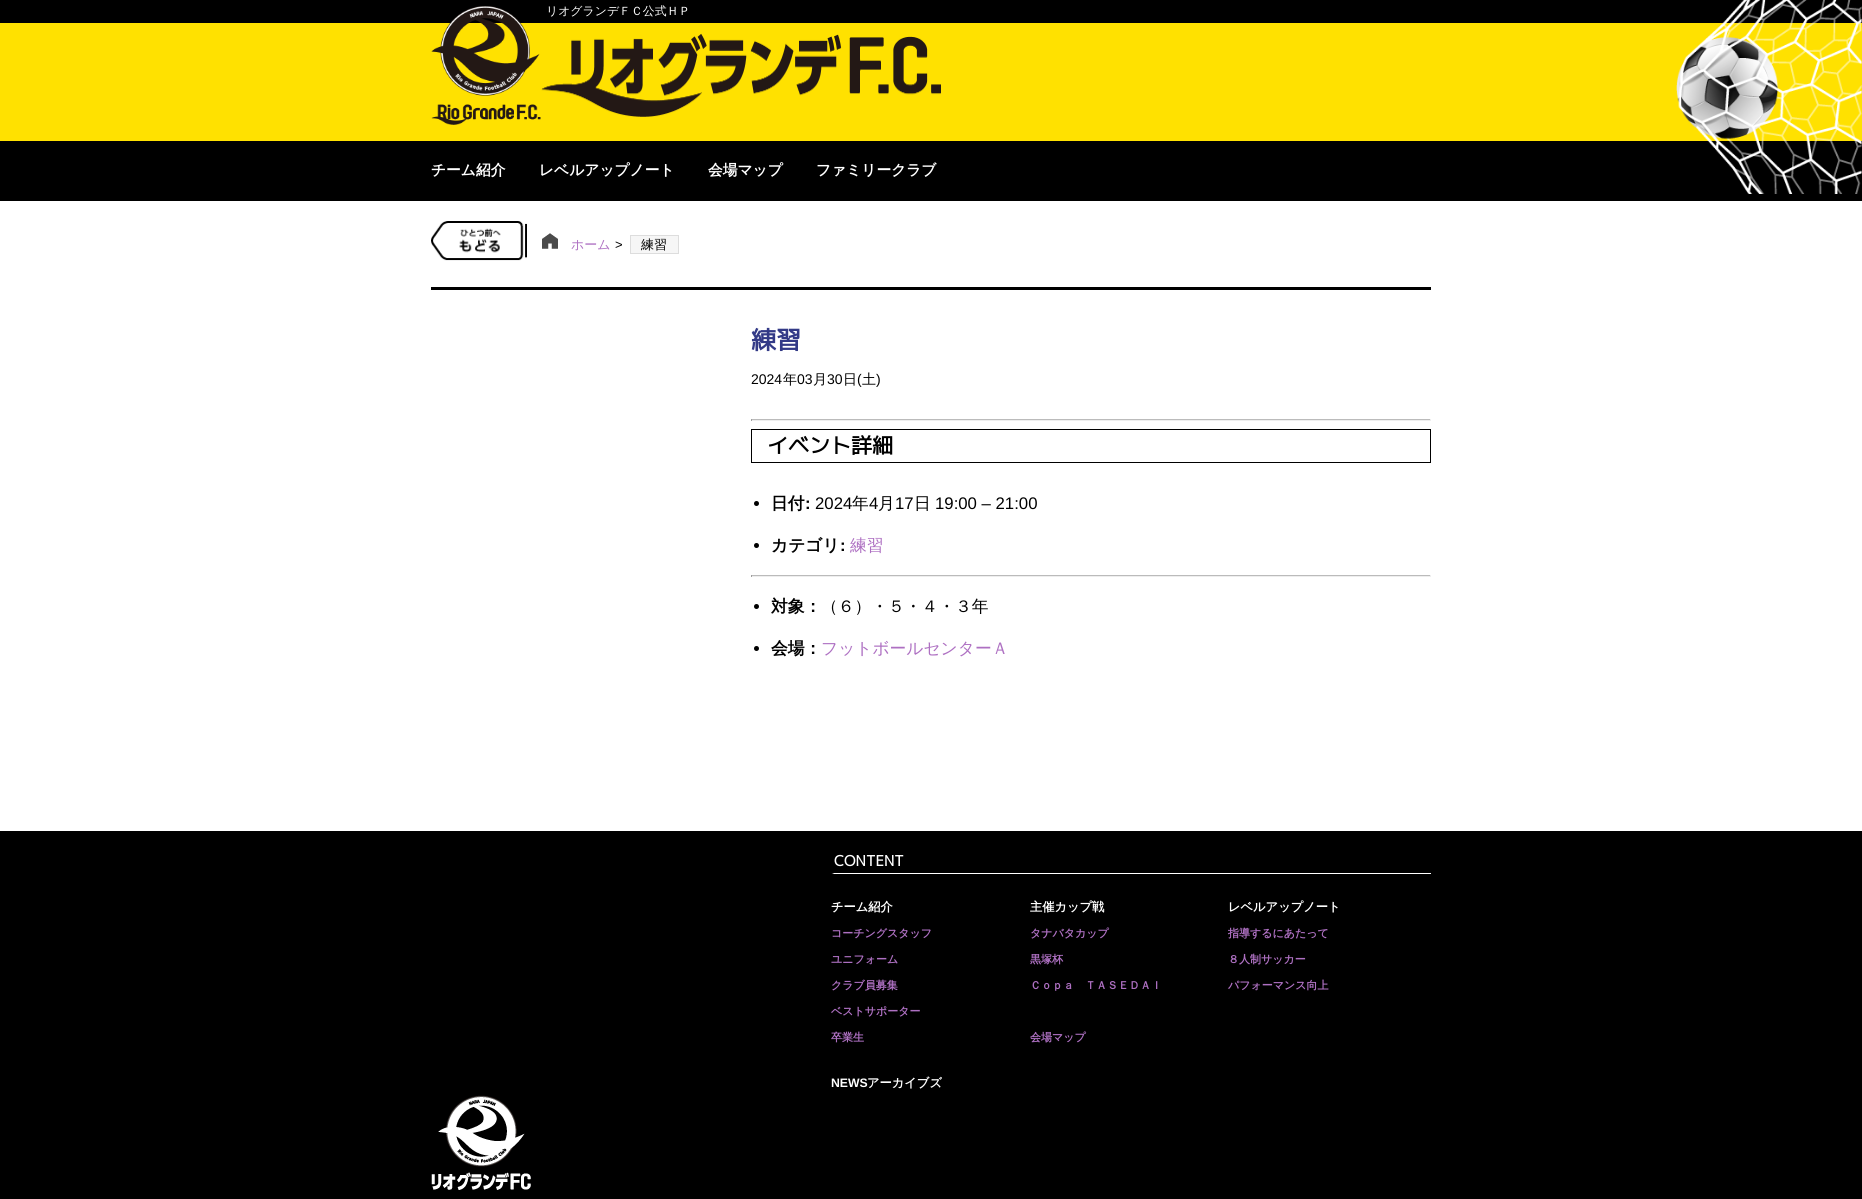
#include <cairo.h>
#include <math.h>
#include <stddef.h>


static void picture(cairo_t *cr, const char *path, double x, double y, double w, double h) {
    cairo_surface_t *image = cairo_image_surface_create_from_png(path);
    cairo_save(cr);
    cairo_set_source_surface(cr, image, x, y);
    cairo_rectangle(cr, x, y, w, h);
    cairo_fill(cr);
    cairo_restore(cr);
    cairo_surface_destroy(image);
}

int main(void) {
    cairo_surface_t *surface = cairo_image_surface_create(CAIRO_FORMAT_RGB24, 1862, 1199);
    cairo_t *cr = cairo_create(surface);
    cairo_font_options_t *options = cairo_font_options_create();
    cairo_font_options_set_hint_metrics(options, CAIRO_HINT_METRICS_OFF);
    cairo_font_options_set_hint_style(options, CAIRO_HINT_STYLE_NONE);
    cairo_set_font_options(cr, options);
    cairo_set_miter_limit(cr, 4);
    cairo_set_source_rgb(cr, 0, 0, 0);
    cairo_paint(cr);
    cairo_set_source_rgb(cr, 1, 0.882, 0);
    cairo_rectangle(cr, 0, 23, 1862, 118);
    cairo_fill(cr);
    picture(cr, "img1.png", 431, 6, 110, 119);
    cairo_select_font_face(cr, "WenQuanYi Zen Hei Medium", CAIRO_FONT_SLANT_NORMAL, CAIRO_FONT_WEIGHT_NORMAL);
    cairo_set_font_size(cr, 11.9);
    cairo_set_source_rgb(cr, 1, 1, 1);
    cairo_move_to(cr, 546, 15);
    cairo_show_text(cr, "リオグランデＦＣ公式ＨＰ");
    picture(cr, "img2.png", 1676, 0, 186, 194);
    picture(cr, "img3.png", 541, 33, 400, 84);
    cairo_select_font_face(cr, "WenQuanYi Zen Hei", CAIRO_FONT_SLANT_NORMAL, CAIRO_FONT_WEIGHT_BOLD);
    cairo_set_font_size(cr, 14.75);
    cairo_move_to(cr, 431, 175);
    cairo_show_text(cr, "チーム紹介");
    cairo_move_to(cr, 539, 175);
    cairo_show_text(cr, "レベルアップノート");
    cairo_move_to(cr, 708, 175);
    cairo_show_text(cr, "会場マップ");
    cairo_move_to(cr, 816, 175);
    cairo_show_text(cr, "ファミリークラブ");
    cairo_rectangle(cr, 0, 201, 1862, 630);
    cairo_fill(cr);
    picture(cr, "img4.png", 431, 221, 96, 40);
    picture(cr, "img5.png", 542, 233, 16, 16);
    cairo_select_font_face(cr, "WenQuanYi Zen Hei Medium", CAIRO_FONT_SLANT_NORMAL, CAIRO_FONT_WEIGHT_NORMAL);
    cairo_set_font_size(cr, 13);
    cairo_set_source_rgb(cr, 0.682, 0.439, 0.761);
    cairo_move_to(cr, 571, 249);
    cairo_show_text(cr, "ホーム");
    cairo_select_font_face(cr, "Liberation Sans", CAIRO_FONT_SLANT_NORMAL, CAIRO_FONT_WEIGHT_NORMAL);
    cairo_set_source_rgb(cr, 0, 0, 0);
    cairo_move_to(cr, 615, 249);
    cairo_show_text(cr, ">");
    cairo_set_source_rgb(cr, 0.961, 0.961, 0.961);
    cairo_rectangle(cr, 630.5, 235.5, 48, 18);
    cairo_fill_preserve(cr);
    cairo_set_source_rgb(cr, 0.867, 0.867, 0.867);
    cairo_set_line_width(cr, 1);
    cairo_stroke(cr);
    cairo_select_font_face(cr, "WenQuanYi Zen Hei Medium", CAIRO_FONT_SLANT_NORMAL, CAIRO_FONT_WEIGHT_NORMAL);
    cairo_set_source_rgb(cr, 0, 0, 0);
    cairo_move_to(cr, 641, 249);
    cairo_show_text(cr, "練習");
    cairo_rectangle(cr, 431, 287, 1000, 3);
    cairo_fill(cr);
    cairo_select_font_face(cr, "M PLUS 1p", CAIRO_FONT_SLANT_NORMAL, CAIRO_FONT_WEIGHT_BOLD);
    cairo_set_font_size(cr, 25);
    cairo_set_source_rgb(cr, 0.2, 0.227, 0.529);
    cairo_move_to(cr, 751, 349);
    cairo_show_text(cr, "練習");
    cairo_select_font_face(cr, "Liberation Sans", CAIRO_FONT_SLANT_NORMAL, CAIRO_FONT_WEIGHT_NORMAL);
    cairo_set_font_size(cr, 14);
    cairo_set_source_rgb(cr, 0, 0, 0);
    cairo_move_to(cr, 751, 384);
    cairo_show_text(cr, "2024");
    cairo_select_font_face(cr, "WenQuanYi Zen Hei Medium", CAIRO_FONT_SLANT_NORMAL, CAIRO_FONT_WEIGHT_NORMAL);
    cairo_move_to(cr, 783, 384);
    cairo_show_text(cr, "年");
    cairo_select_font_face(cr, "Liberation Sans", CAIRO_FONT_SLANT_NORMAL, CAIRO_FONT_WEIGHT_NORMAL);
    cairo_move_to(cr, 797, 384);
    cairo_show_text(cr, "03");
    cairo_select_font_face(cr, "WenQuanYi Zen Hei Medium", CAIRO_FONT_SLANT_NORMAL, CAIRO_FONT_WEIGHT_NORMAL);
    cairo_move_to(cr, 813, 384);
    cairo_show_text(cr, "月");
    cairo_select_font_face(cr, "Liberation Sans", CAIRO_FONT_SLANT_NORMAL, CAIRO_FONT_WEIGHT_NORMAL);
    cairo_move_to(cr, 827, 384);
    cairo_show_text(cr, "30");
    cairo_select_font_face(cr, "WenQuanYi Zen Hei Medium", CAIRO_FONT_SLANT_NORMAL, CAIRO_FONT_WEIGHT_NORMAL);
    cairo_move_to(cr, 843, 384);
    cairo_show_text(cr, "日");
    cairo_select_font_face(cr, "Liberation Sans", CAIRO_FONT_SLANT_NORMAL, CAIRO_FONT_WEIGHT_NORMAL);
    cairo_move_to(cr, 857, 384);
    cairo_show_text(cr, "(");
    cairo_select_font_face(cr, "WenQuanYi Zen Hei Medium", CAIRO_FONT_SLANT_NORMAL, CAIRO_FONT_WEIGHT_NORMAL);
    cairo_move_to(cr, 862, 384);
    cairo_show_text(cr, "土");
    cairo_select_font_face(cr, "Liberation Sans", CAIRO_FONT_SLANT_NORMAL, CAIRO_FONT_WEIGHT_NORMAL);
    cairo_move_to(cr, 876, 384);
    cairo_show_text(cr, ")");
    cairo_set_source_rgb(cr, 0.733, 0.733, 0.733);
    cairo_rectangle(cr, 751, 419, 680, 1);
    cairo_fill(cr);
    cairo_set_source_rgb(cr, 0.933, 0.933, 0.933);
    cairo_rectangle(cr, 1430, 419, 1, 2);
    cairo_fill(cr);
    cairo_rectangle(cr, 751, 420, 680, 1);
    cairo_fill(cr);
    cairo_set_source_rgb(cr, 0.624, 0.624, 0.624);
    cairo_rectangle(cr, 751, 419, 1, 2);
    cairo_fill(cr);
    cairo_rectangle(cr, 751.5, 429.5, 679, 33);
    cairo_set_source_rgb(cr, 0, 0, 0);
    cairo_stroke(cr);
    cairo_select_font_face(cr, "M PLUS 1p", CAIRO_FONT_SLANT_NORMAL, CAIRO_FONT_WEIGHT_BOLD);
    cairo_set_font_size(cr, 21);
    cairo_move_to(cr, 767, 453);
    cairo_show_text(cr, "イベント詳細");
    cairo_new_path(cr);
    cairo_arc(cr, 756.5, 503.5, 2.5, 0, 2 * M_PI);
    cairo_fill(cr);
    cairo_select_font_face(cr, "WenQuanYi Zen Hei", CAIRO_FONT_SLANT_NORMAL, CAIRO_FONT_WEIGHT_BOLD);
    cairo_set_font_size(cr, 16.75);
    cairo_move_to(cr, 771, 509);
    cairo_show_text(cr, "日付");
    cairo_select_font_face(cr, "Liberation Sans", CAIRO_FONT_SLANT_NORMAL, CAIRO_FONT_WEIGHT_BOLD);
    cairo_move_to(cr, 805, 509);
    cairo_show_text(cr, ":");
    cairo_select_font_face(cr, "Liberation Sans", CAIRO_FONT_SLANT_NORMAL, CAIRO_FONT_WEIGHT_NORMAL);
    cairo_move_to(cr, 815, 509);
    cairo_show_text(cr, "2024");
    cairo_select_font_face(cr, "WenQuanYi Zen Hei Medium", CAIRO_FONT_SLANT_NORMAL, CAIRO_FONT_WEIGHT_NORMAL);
    cairo_move_to(cr, 852, 509);
    cairo_show_text(cr, "年");
    cairo_select_font_face(cr, "Liberation Sans", CAIRO_FONT_SLANT_NORMAL, CAIRO_FONT_WEIGHT_NORMAL);
    cairo_move_to(cr, 869, 509);
    cairo_show_text(cr, "4");
    cairo_select_font_face(cr, "WenQuanYi Zen Hei Medium", CAIRO_FONT_SLANT_NORMAL, CAIRO_FONT_WEIGHT_NORMAL);
    cairo_move_to(cr, 878, 509);
    cairo_show_text(cr, "月");
    cairo_select_font_face(cr, "Liberation Sans", CAIRO_FONT_SLANT_NORMAL, CAIRO_FONT_WEIGHT_NORMAL);
    cairo_move_to(cr, 895, 509);
    cairo_show_text(cr, "17");
    cairo_select_font_face(cr, "WenQuanYi Zen Hei Medium", CAIRO_FONT_SLANT_NORMAL, CAIRO_FONT_WEIGHT_NORMAL);
    cairo_move_to(cr, 914, 509);
    cairo_show_text(cr, "日");
    cairo_select_font_face(cr, "Liberation Sans", CAIRO_FONT_SLANT_NORMAL, CAIRO_FONT_WEIGHT_NORMAL);
    cairo_move_to(cr, 935, 509);
    cairo_show_text(cr, "19:00 – 21:00");
    cairo_new_path(cr);
    cairo_arc(cr, 756.5, 545.5, 2.5, 0, 2 * M_PI);
    cairo_fill(cr);
    cairo_select_font_face(cr, "WenQuanYi Zen Hei", CAIRO_FONT_SLANT_NORMAL, CAIRO_FONT_WEIGHT_BOLD);
    cairo_move_to(cr, 771, 551);
    cairo_show_text(cr, "カテゴリ");
    cairo_select_font_face(cr, "Liberation Sans", CAIRO_FONT_SLANT_NORMAL, CAIRO_FONT_WEIGHT_BOLD);
    cairo_move_to(cr, 840, 551);
    cairo_show_text(cr, ":");
    cairo_select_font_face(cr, "WenQuanYi Zen Hei Medium", CAIRO_FONT_SLANT_NORMAL, CAIRO_FONT_WEIGHT_NORMAL);
    cairo_set_source_rgb(cr, 0.682, 0.439, 0.761);
    cairo_move_to(cr, 850, 551);
    cairo_show_text(cr, "練習");
    cairo_set_source_rgb(cr, 0.733, 0.733, 0.733);
    cairo_rectangle(cr, 751, 575, 680, 1);
    cairo_fill(cr);
    cairo_set_source_rgb(cr, 0.933, 0.933, 0.933);
    cairo_rectangle(cr, 1430, 575, 1, 2);
    cairo_fill(cr);
    cairo_rectangle(cr, 751, 576, 680, 1);
    cairo_fill(cr);
    cairo_set_source_rgb(cr, 0.624, 0.624, 0.624);
    cairo_rectangle(cr, 751, 575, 1, 2);
    cairo_fill(cr);
    cairo_set_source_rgb(cr, 0, 0, 0);
    cairo_arc(cr, 756.5, 606.5, 2.5, 0, 2 * M_PI);
    cairo_fill(cr);
    cairo_select_font_face(cr, "WenQuanYi Zen Hei", CAIRO_FONT_SLANT_NORMAL, CAIRO_FONT_WEIGHT_BOLD);
    cairo_move_to(cr, 771, 612);
    cairo_show_text(cr, "対象：");
    cairo_select_font_face(cr, "WenQuanYi Zen Hei Medium", CAIRO_FONT_SLANT_NORMAL, CAIRO_FONT_WEIGHT_NORMAL);
    cairo_move_to(cr, 821, 612);
    cairo_show_text(cr, "（６）・５・４・３年");
    cairo_new_path(cr);
    cairo_arc(cr, 756.5, 648.5, 2.5, 0, 2 * M_PI);
    cairo_fill(cr);
    cairo_select_font_face(cr, "WenQuanYi Zen Hei", CAIRO_FONT_SLANT_NORMAL, CAIRO_FONT_WEIGHT_BOLD);
    cairo_move_to(cr, 771, 654);
    cairo_show_text(cr, "会場：");
    cairo_select_font_face(cr, "WenQuanYi Zen Hei Medium", CAIRO_FONT_SLANT_NORMAL, CAIRO_FONT_WEIGHT_NORMAL);
    cairo_set_source_rgb(cr, 0.682, 0.439, 0.761);
    cairo_move_to(cr, 821, 654);
    cairo_show_text(cr, "フットボールセンターＡ");
    cairo_set_source_rgb(cr, 1, 1, 1);
    cairo_new_path(cr);
    cairo_move_to(cr, 1431, 874);
    cairo_line_to(cr, 831, 874);
    cairo_line_to(cr, 834, 873);
    cairo_line_to(cr, 1431, 873);
    cairo_close_path(cr);
    cairo_fill(cr);
    cairo_set_source_rgb(cr, 0, 0, 0);
    cairo_new_path(cr);
    cairo_move_to(cr, 831, 874);
    cairo_line_to(cr, 831, 851);
    cairo_line_to(cr, 834, 851);
    cairo_line_to(cr, 834, 873);
    cairo_close_path(cr);
    cairo_fill(cr);
    cairo_select_font_face(cr, "M PLUS 1p", CAIRO_FONT_SLANT_NORMAL, CAIRO_FONT_WEIGHT_BOLD);
    cairo_set_font_size(cr, 14.5);
    cairo_set_source_rgb(cr, 1, 1, 1);
    cairo_move_to(cr, 834, 866);
    cairo_show_text(cr, "CONTENT");
    cairo_select_font_face(cr, "WenQuanYi Zen Hei", CAIRO_FONT_SLANT_NORMAL, CAIRO_FONT_WEIGHT_BOLD);
    cairo_set_font_size(cr, 12.25);
    cairo_move_to(cr, 831, 911);
    cairo_show_text(cr, "チーム紹介");
    cairo_set_font_size(cr, 11);
    cairo_set_source_rgb(cr, 0.682, 0.439, 0.761);
    cairo_move_to(cr, 831, 937);
    cairo_show_text(cr, "コーチングスタッフ");
    cairo_move_to(cr, 831, 963);
    cairo_show_text(cr, "ユニフォーム");
    cairo_move_to(cr, 831, 989);
    cairo_show_text(cr, "クラブ員募集");
    cairo_move_to(cr, 831, 1015);
    cairo_show_text(cr, "ベストサポーター");
    cairo_move_to(cr, 831, 1041);
    cairo_show_text(cr, "卒業生");
    cairo_set_font_size(cr, 12.25);
    cairo_set_source_rgb(cr, 1, 1, 1);
    cairo_move_to(cr, 1030, 911);
    cairo_show_text(cr, "主催カップ戦");
    cairo_set_font_size(cr, 11);
    cairo_set_source_rgb(cr, 0.682, 0.439, 0.761);
    cairo_move_to(cr, 1030, 937);
    cairo_show_text(cr, "タナバタカップ");
    cairo_move_to(cr, 1030, 963);
    cairo_show_text(cr, "黒塚杯");
    cairo_move_to(cr, 1030, 989);
    cairo_show_text(cr, "Ｃｏｐａ　ＴＡＳＥＤＡＩ");
    cairo_move_to(cr, 1030, 1041);
    cairo_show_text(cr, "会場マップ");
    cairo_set_font_size(cr, 12.25);
    cairo_set_source_rgb(cr, 1, 1, 1);
    cairo_move_to(cr, 1228, 911);
    cairo_show_text(cr, "レベルアップノート");
    cairo_set_font_size(cr, 11);
    cairo_set_source_rgb(cr, 0.682, 0.439, 0.761);
    cairo_move_to(cr, 1228, 937);
    cairo_show_text(cr, "指導するにあたって");
    cairo_move_to(cr, 1228, 963);
    cairo_show_text(cr, "８人制サッカー");
    cairo_move_to(cr, 1228, 989);
    cairo_show_text(cr, "パフォーマンス向上");
    cairo_select_font_face(cr, "Liberation Sans", CAIRO_FONT_SLANT_NORMAL, CAIRO_FONT_WEIGHT_BOLD);
    cairo_set_font_size(cr, 12.25);
    cairo_set_source_rgb(cr, 1, 1, 1);
    cairo_move_to(cr, 831, 1087);
    cairo_show_text(cr, "NEWS");
    cairo_select_font_face(cr, "WenQuanYi Zen Hei", CAIRO_FONT_SLANT_NORMAL, CAIRO_FONT_WEIGHT_BOLD);
    cairo_move_to(cr, 867, 1087);
    cairo_show_text(cr, "アーカイブズ");
    picture(cr, "img6.png", 431, 1095, 100, 95);
    cairo_surface_write_to_png(surface, "page.png");
    cairo_font_options_destroy(options);
    cairo_destroy(cr);
    cairo_surface_destroy(surface);
    return 0;
}
